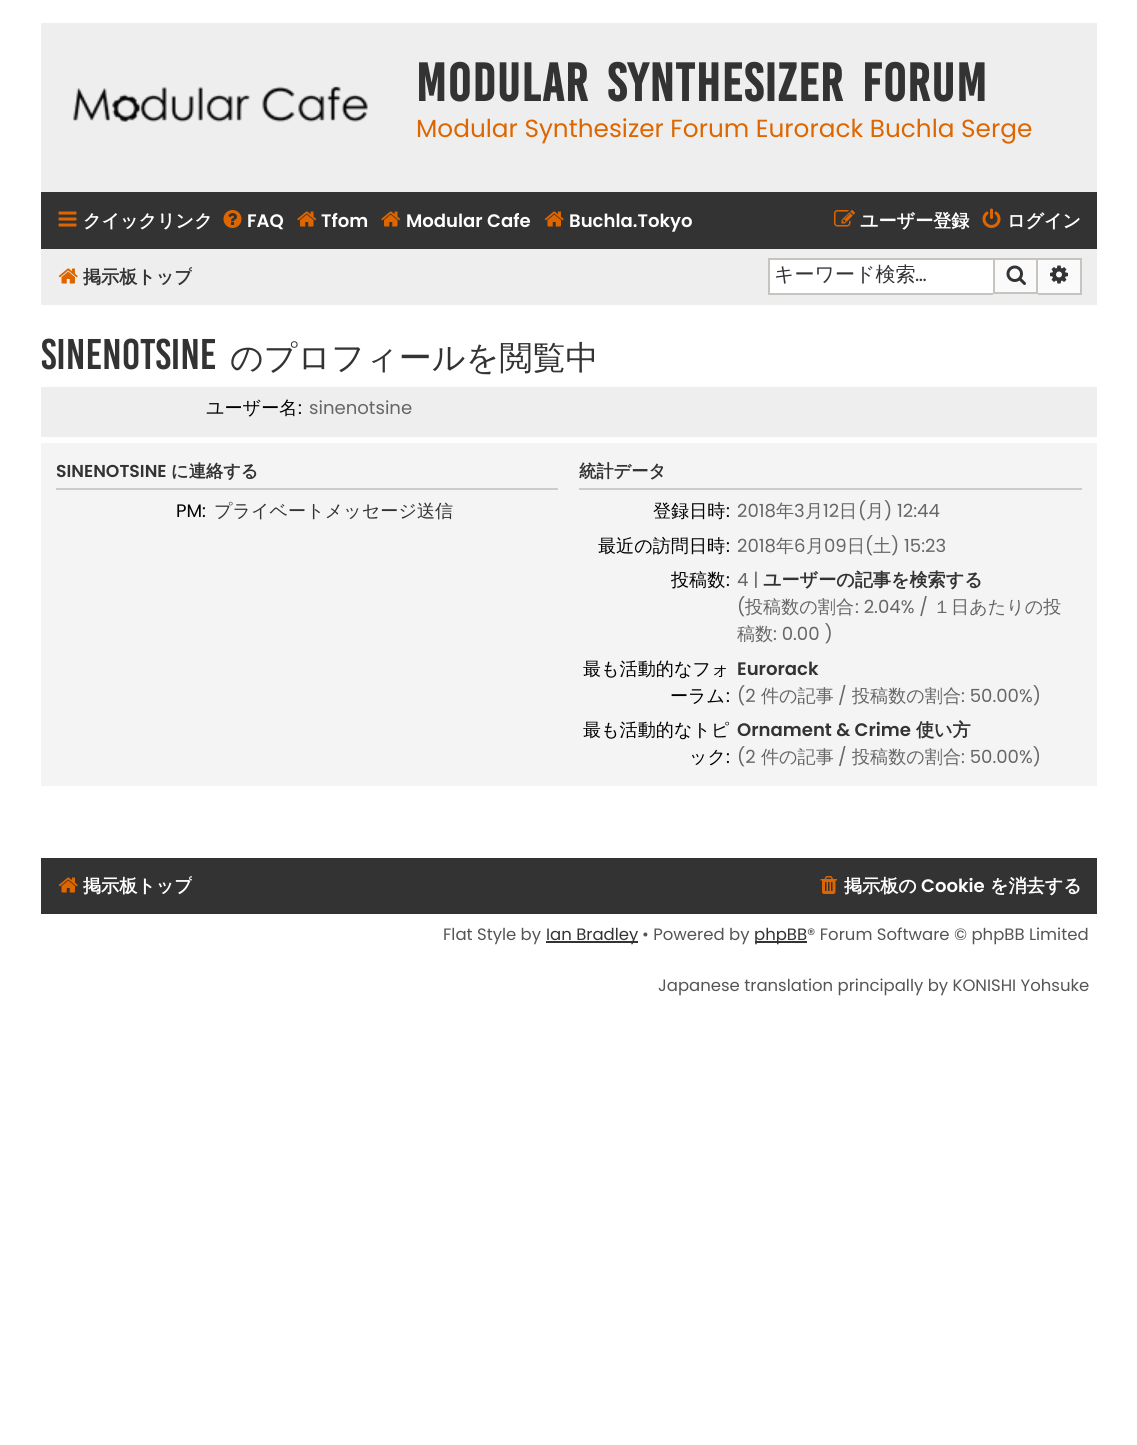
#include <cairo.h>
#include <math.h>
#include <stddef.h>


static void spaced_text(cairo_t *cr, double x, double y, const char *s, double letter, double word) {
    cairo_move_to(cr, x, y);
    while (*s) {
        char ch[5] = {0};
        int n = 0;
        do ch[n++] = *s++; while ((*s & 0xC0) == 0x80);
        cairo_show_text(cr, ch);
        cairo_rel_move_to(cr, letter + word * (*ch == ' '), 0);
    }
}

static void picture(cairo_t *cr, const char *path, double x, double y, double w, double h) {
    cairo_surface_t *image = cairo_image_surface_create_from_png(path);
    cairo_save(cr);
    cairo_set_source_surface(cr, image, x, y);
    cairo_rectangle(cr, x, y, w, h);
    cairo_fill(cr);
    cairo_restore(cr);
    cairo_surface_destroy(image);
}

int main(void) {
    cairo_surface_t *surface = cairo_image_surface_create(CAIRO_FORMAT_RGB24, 1137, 1445);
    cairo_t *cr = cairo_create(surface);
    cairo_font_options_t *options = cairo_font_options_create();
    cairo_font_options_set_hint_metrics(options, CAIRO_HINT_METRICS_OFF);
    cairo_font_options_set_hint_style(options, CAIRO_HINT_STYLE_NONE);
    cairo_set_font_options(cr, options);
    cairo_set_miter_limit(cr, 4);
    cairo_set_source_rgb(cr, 1, 1, 1);
    cairo_paint(cr);
    cairo_set_source_rgb(cr, 0.933, 0.933, 0.933);
    cairo_rectangle(cr, 41, 23, 1056, 169);
    cairo_fill(cr);
    picture(cr, "img1.png", 73, 86, 295, 36);
    cairo_select_font_face(cr, "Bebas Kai", CAIRO_FONT_SLANT_NORMAL, CAIRO_FONT_WEIGHT_BOLD);
    cairo_set_font_size(cr, 41.25);
    cairo_set_source_rgb(cr, 0.2, 0.2, 0.2);
    spaced_text(cr, 416, 101, "Modular Synthesizer Forum", 1.5, 6);
    cairo_select_font_face(cr, "Poppins", CAIRO_FONT_SLANT_NORMAL, CAIRO_FONT_WEIGHT_NORMAL);
    cairo_set_font_size(cr, 24.75);
    cairo_set_source_rgb(cr, 0.867, 0.4, 0);
    cairo_move_to(cr, 416, 137);
    cairo_show_text(cr, "Modular Synthesizer Forum Eurorack Buchla Serge");
    cairo_set_source_rgb(cr, 0.2, 0.2, 0.2);
    cairo_rectangle(cr, 41, 192, 1056, 57);
    cairo_fill(cr);
    picture(cr, "img2.png", 58, 211, 19, 16);
    cairo_select_font_face(cr, "WenQuanYi Zen Hei", CAIRO_FONT_SLANT_NORMAL, CAIRO_FONT_WEIGHT_BOLD);
    cairo_set_font_size(cr, 18.1);
    cairo_set_source_rgb(cr, 1, 1, 1);
    cairo_move_to(cr, 83, 227);
    cairo_show_text(cr, "クイックリンク");
    picture(cr, "img3.png", 223, 210, 19, 18);
    cairo_select_font_face(cr, "Poppins SemiBold", CAIRO_FONT_SLANT_NORMAL, CAIRO_FONT_WEIGHT_NORMAL);
    cairo_move_to(cr, 247, 227);
    cairo_show_text(cr, "FAQ");
    picture(cr, "img4.png", 297, 211, 20, 16);
    cairo_move_to(cr, 321, 227);
    cairo_show_text(cr, "Tfom");
    picture(cr, "img4.png", 381, 211, 20, 16);
    cairo_move_to(cr, 406, 227);
    cairo_show_text(cr, "Modular Cafe");
    picture(cr, "img5.png", 544, 211, 20, 16);
    cairo_move_to(cr, 569, 227);
    cairo_show_text(cr, "Buchla.Tokyo");
    picture(cr, "img6.png", 834, 210, 21, 17);
    cairo_select_font_face(cr, "WenQuanYi Zen Hei", CAIRO_FONT_SLANT_NORMAL, CAIRO_FONT_WEIGHT_BOLD);
    cairo_move_to(cr, 860, 227);
    cairo_show_text(cr, "ユーザー登録");
    picture(cr, "img7.png", 982, 208, 19, 20);
    cairo_move_to(cr, 1007, 227);
    cairo_show_text(cr, "ログイン");
    cairo_set_source_rgb(cr, 0.933, 0.933, 0.933);
    cairo_rectangle(cr, 41, 249, 1056, 56);
    cairo_fill(cr);
    picture(cr, "img8.png", 58, 268, 20, 16);
    cairo_save(cr);
    cairo_rectangle(cr, 56, 258, 136, 39);
    cairo_clip(cr);
    cairo_set_source_rgb(cr, 0.2, 0.2, 0.2);
    cairo_move_to(cr, 83, 283);
    cairo_show_text(cr, "掲示板トップ");
    cairo_restore(cr);
    cairo_set_source_rgb(cr, 1, 1, 1);
    cairo_rectangle(cr, 770, 260, 223, 33);
    cairo_fill(cr);
    cairo_set_source_rgb(cr, 0.78, 0.765, 0.749);
    cairo_rectangle(cr, 768, 258, 225, 2);
    cairo_fill(cr);
    cairo_rectangle(cr, 768, 293, 225, 2);
    cairo_fill(cr);
    cairo_rectangle(cr, 768, 258, 2, 36);
    cairo_fill(cr);
    cairo_select_font_face(cr, "WenQuanYi Zen Hei Medium", CAIRO_FONT_SLANT_NORMAL, CAIRO_FONT_WEIGHT_NORMAL);
    cairo_set_font_size(cr, 20);
    cairo_set_source_rgb(cr, 0.2, 0.2, 0.2);
    cairo_move_to(cr, 774, 281);
    cairo_show_text(cr, "キーワード検索");
    cairo_select_font_face(cr, "Poppins", CAIRO_FONT_SLANT_NORMAL, CAIRO_FONT_WEIGHT_NORMAL);
    cairo_move_to(cr, 915, 281);
    cairo_show_text(cr, "…");
    cairo_set_source_rgb(cr, 0.98, 0.98, 0.98);
    cairo_rectangle(cr, 994, 259, 43, 34);
    cairo_fill_preserve(cr);
    cairo_set_source_rgb(cr, 0.78, 0.765, 0.749);
    cairo_stroke(cr);
    picture(cr, "img9.png", 1006, 265, 20, 20);
    cairo_set_source_rgb(cr, 0.98, 0.98, 0.98);
    cairo_rectangle(cr, 1038, 260, 42, 33);
    cairo_fill(cr);
    cairo_set_source_rgb(cr, 0.78, 0.765, 0.749);
    cairo_rectangle(cr, 1038, 258, 44, 2);
    cairo_fill(cr);
    cairo_rectangle(cr, 1080, 258, 2, 36);
    cairo_fill(cr);
    cairo_rectangle(cr, 1038, 293, 44, 2);
    cairo_fill(cr);
    picture(cr, "img10.png", 1050, 265, 18, 19);
    cairo_select_font_face(cr, "Bebas Kai", CAIRO_FONT_SLANT_NORMAL, CAIRO_FONT_WEIGHT_NORMAL);
    cairo_set_font_size(cr, 33);
    cairo_set_source_rgb(cr, 0.2, 0.2, 0.2);
    cairo_move_to(cr, 41, 369);
    cairo_show_text(cr, "sinenotsine");
    cairo_select_font_face(cr, "WenQuanYi Zen Hei Medium", CAIRO_FONT_SLANT_NORMAL, CAIRO_FONT_WEIGHT_NORMAL);
    cairo_move_to(cr, 230, 369);
    cairo_show_text(cr, "のプロフィールを閲覧中");
    cairo_set_source_rgb(cr, 0.933, 0.933, 0.933);
    cairo_rectangle(cr, 41, 387, 1056, 50);
    cairo_fill(cr);
    cairo_set_font_size(cr, 18.1);
    cairo_set_source_rgb(cr, 0, 0, 0);
    cairo_move_to(cr, 206, 414);
    cairo_show_text(cr, "ユーザー名");
    cairo_select_font_face(cr, "Poppins", CAIRO_FONT_SLANT_NORMAL, CAIRO_FONT_WEIGHT_NORMAL);
    cairo_move_to(cr, 298, 414);
    cairo_show_text(cr, ":");
    cairo_set_source_rgb(cr, 0.4, 0.4, 0.4);
    cairo_move_to(cr, 309, 414);
    cairo_show_text(cr, "sinenotsine");
    cairo_set_source_rgb(cr, 0.957, 0.957, 0.957);
    cairo_rectangle(cr, 41, 443, 1056, 343);
    cairo_fill(cr);
    cairo_set_source_rgb(cr, 0.8, 0.8, 0.8);
    cairo_rectangle(cr, 56, 488, 502, 2);
    cairo_fill(cr);
    cairo_select_font_face(cr, "Poppins SemiBold", CAIRO_FONT_SLANT_NORMAL, CAIRO_FONT_WEIGHT_NORMAL);
    cairo_set_font_size(cr, 17.25);
    cairo_set_source_rgb(cr, 0.2, 0.2, 0.2);
    cairo_move_to(cr, 56, 477);
    cairo_show_text(cr, "SINENOTSINE");
    cairo_select_font_face(cr, "WenQuanYi Zen Hei", CAIRO_FONT_SLANT_NORMAL, CAIRO_FONT_WEIGHT_BOLD);
    cairo_move_to(cr, 171, 477);
    cairo_show_text(cr, "に連絡する");
    cairo_select_font_face(cr, "Poppins", CAIRO_FONT_SLANT_NORMAL, CAIRO_FONT_WEIGHT_NORMAL);
    cairo_set_font_size(cr, 18.1);
    cairo_set_source_rgb(cr, 0, 0, 0);
    cairo_move_to(cr, 176, 517);
    cairo_show_text(cr, "PM:");
    cairo_select_font_face(cr, "WenQuanYi Zen Hei Medium", CAIRO_FONT_SLANT_NORMAL, CAIRO_FONT_WEIGHT_NORMAL);
    cairo_set_source_rgb(cr, 0.2, 0.2, 0.2);
    cairo_move_to(cr, 214, 517);
    cairo_show_text(cr, "プライベートメッセージ送信");
    cairo_set_source_rgb(cr, 0.8, 0.8, 0.8);
    cairo_rectangle(cr, 579, 488, 503, 2);
    cairo_fill(cr);
    cairo_select_font_face(cr, "WenQuanYi Zen Hei", CAIRO_FONT_SLANT_NORMAL, CAIRO_FONT_WEIGHT_BOLD);
    cairo_set_font_size(cr, 17.25);
    cairo_set_source_rgb(cr, 0.2, 0.2, 0.2);
    cairo_move_to(cr, 579, 477);
    cairo_show_text(cr, "統計データ");
    cairo_select_font_face(cr, "WenQuanYi Zen Hei Medium", CAIRO_FONT_SLANT_NORMAL, CAIRO_FONT_WEIGHT_NORMAL);
    cairo_set_font_size(cr, 18.1);
    cairo_set_source_rgb(cr, 0, 0, 0);
    cairo_move_to(cr, 653, 517);
    cairo_show_text(cr, "登録日時");
    cairo_select_font_face(cr, "Poppins", CAIRO_FONT_SLANT_NORMAL, CAIRO_FONT_WEIGHT_NORMAL);
    cairo_move_to(cr, 726, 517);
    cairo_show_text(cr, ":");
    cairo_set_source_rgb(cr, 0.4, 0.4, 0.4);
    cairo_move_to(cr, 737, 517);
    cairo_show_text(cr, "2018");
    cairo_select_font_face(cr, "WenQuanYi Zen Hei Medium", CAIRO_FONT_SLANT_NORMAL, CAIRO_FONT_WEIGHT_NORMAL);
    cairo_move_to(cr, 776, 517);
    cairo_show_text(cr, "年");
    cairo_select_font_face(cr, "Poppins", CAIRO_FONT_SLANT_NORMAL, CAIRO_FONT_WEIGHT_NORMAL);
    cairo_move_to(cr, 794, 517);
    cairo_show_text(cr, "3");
    cairo_select_font_face(cr, "WenQuanYi Zen Hei Medium", CAIRO_FONT_SLANT_NORMAL, CAIRO_FONT_WEIGHT_NORMAL);
    cairo_move_to(cr, 805, 517);
    cairo_show_text(cr, "月");
    cairo_select_font_face(cr, "Poppins", CAIRO_FONT_SLANT_NORMAL, CAIRO_FONT_WEIGHT_NORMAL);
    cairo_move_to(cr, 823, 517);
    cairo_show_text(cr, "12");
    cairo_select_font_face(cr, "WenQuanYi Zen Hei Medium", CAIRO_FONT_SLANT_NORMAL, CAIRO_FONT_WEIGHT_NORMAL);
    cairo_move_to(cr, 839, 517);
    cairo_show_text(cr, "日");
    cairo_select_font_face(cr, "Poppins", CAIRO_FONT_SLANT_NORMAL, CAIRO_FONT_WEIGHT_NORMAL);
    cairo_move_to(cr, 858, 517);
    cairo_show_text(cr, "(");
    cairo_select_font_face(cr, "WenQuanYi Zen Hei Medium", CAIRO_FONT_SLANT_NORMAL, CAIRO_FONT_WEIGHT_NORMAL);
    cairo_move_to(cr, 866, 517);
    cairo_show_text(cr, "月");
    cairo_select_font_face(cr, "Poppins", CAIRO_FONT_SLANT_NORMAL, CAIRO_FONT_WEIGHT_NORMAL);
    cairo_move_to(cr, 884, 517);
    cairo_show_text(cr, ") 12:44");
    cairo_select_font_face(cr, "WenQuanYi Zen Hei Medium", CAIRO_FONT_SLANT_NORMAL, CAIRO_FONT_WEIGHT_NORMAL);
    cairo_set_source_rgb(cr, 0, 0, 0);
    cairo_move_to(cr, 598, 552);
    cairo_show_text(cr, "最近の訪問日時");
    cairo_select_font_face(cr, "Poppins", CAIRO_FONT_SLANT_NORMAL, CAIRO_FONT_WEIGHT_NORMAL);
    cairo_move_to(cr, 726, 552);
    cairo_show_text(cr, ":");
    cairo_set_source_rgb(cr, 0.4, 0.4, 0.4);
    cairo_move_to(cr, 737, 552);
    cairo_show_text(cr, "2018");
    cairo_select_font_face(cr, "WenQuanYi Zen Hei Medium", CAIRO_FONT_SLANT_NORMAL, CAIRO_FONT_WEIGHT_NORMAL);
    cairo_move_to(cr, 776, 552);
    cairo_show_text(cr, "年");
    cairo_select_font_face(cr, "Poppins", CAIRO_FONT_SLANT_NORMAL, CAIRO_FONT_WEIGHT_NORMAL);
    cairo_move_to(cr, 794, 552);
    cairo_show_text(cr, "6");
    cairo_select_font_face(cr, "WenQuanYi Zen Hei Medium", CAIRO_FONT_SLANT_NORMAL, CAIRO_FONT_WEIGHT_NORMAL);
    cairo_move_to(cr, 806, 552);
    cairo_show_text(cr, "月");
    cairo_select_font_face(cr, "Poppins", CAIRO_FONT_SLANT_NORMAL, CAIRO_FONT_WEIGHT_NORMAL);
    cairo_move_to(cr, 824, 552);
    cairo_show_text(cr, "09");
    cairo_select_font_face(cr, "WenQuanYi Zen Hei Medium", CAIRO_FONT_SLANT_NORMAL, CAIRO_FONT_WEIGHT_NORMAL);
    cairo_move_to(cr, 847, 552);
    cairo_show_text(cr, "日");
    cairo_select_font_face(cr, "Poppins", CAIRO_FONT_SLANT_NORMAL, CAIRO_FONT_WEIGHT_NORMAL);
    cairo_move_to(cr, 865, 552);
    cairo_show_text(cr, "(");
    cairo_select_font_face(cr, "WenQuanYi Zen Hei Medium", CAIRO_FONT_SLANT_NORMAL, CAIRO_FONT_WEIGHT_NORMAL);
    cairo_move_to(cr, 873, 552);
    cairo_show_text(cr, "土");
    cairo_select_font_face(cr, "Poppins", CAIRO_FONT_SLANT_NORMAL, CAIRO_FONT_WEIGHT_NORMAL);
    cairo_move_to(cr, 891, 552);
    cairo_show_text(cr, ") 15:23");
    cairo_select_font_face(cr, "WenQuanYi Zen Hei Medium", CAIRO_FONT_SLANT_NORMAL, CAIRO_FONT_WEIGHT_NORMAL);
    cairo_set_source_rgb(cr, 0, 0, 0);
    cairo_move_to(cr, 671, 586);
    cairo_show_text(cr, "投稿数");
    cairo_select_font_face(cr, "Poppins", CAIRO_FONT_SLANT_NORMAL, CAIRO_FONT_WEIGHT_NORMAL);
    cairo_move_to(cr, 726, 586);
    cairo_show_text(cr, ":");
    cairo_set_source_rgb(cr, 0.4, 0.4, 0.4);
    cairo_move_to(cr, 737, 586);
    cairo_show_text(cr, "4 |");
    cairo_select_font_face(cr, "WenQuanYi Zen Hei", CAIRO_FONT_SLANT_NORMAL, CAIRO_FONT_WEIGHT_BOLD);
    cairo_set_source_rgb(cr, 0.2, 0.2, 0.2);
    cairo_move_to(cr, 763, 586);
    cairo_show_text(cr, "ユーザーの記事を検索する");
    cairo_select_font_face(cr, "Poppins", CAIRO_FONT_SLANT_NORMAL, CAIRO_FONT_WEIGHT_NORMAL);
    cairo_set_source_rgb(cr, 0.4, 0.4, 0.4);
    cairo_move_to(cr, 737, 613);
    cairo_show_text(cr, "(");
    cairo_select_font_face(cr, "WenQuanYi Zen Hei Medium", CAIRO_FONT_SLANT_NORMAL, CAIRO_FONT_WEIGHT_NORMAL);
    cairo_move_to(cr, 745, 613);
    cairo_show_text(cr, "投稿数の割合");
    cairo_select_font_face(cr, "Poppins", CAIRO_FONT_SLANT_NORMAL, CAIRO_FONT_WEIGHT_NORMAL);
    cairo_move_to(cr, 855, 613);
    cairo_show_text(cr, ": 2.04% /");
    cairo_select_font_face(cr, "WenQuanYi Zen Hei Medium", CAIRO_FONT_SLANT_NORMAL, CAIRO_FONT_WEIGHT_NORMAL);
    cairo_move_to(cr, 933, 613);
    cairo_show_text(cr, "１日あたりの投");
    cairo_move_to(cr, 737, 640);
    cairo_show_text(cr, "稿数");
    cairo_select_font_face(cr, "Poppins", CAIRO_FONT_SLANT_NORMAL, CAIRO_FONT_WEIGHT_NORMAL);
    cairo_move_to(cr, 773, 640);
    cairo_show_text(cr, ": 0.00 )");
    cairo_select_font_face(cr, "WenQuanYi Zen Hei Medium", CAIRO_FONT_SLANT_NORMAL, CAIRO_FONT_WEIGHT_NORMAL);
    cairo_set_source_rgb(cr, 0, 0, 0);
    cairo_move_to(cr, 583, 675);
    cairo_show_text(cr, "最も活動的なフォ");
    cairo_move_to(cr, 670, 702);
    cairo_show_text(cr, "ーラム");
    cairo_select_font_face(cr, "Poppins", CAIRO_FONT_SLANT_NORMAL, CAIRO_FONT_WEIGHT_NORMAL);
    cairo_move_to(cr, 726, 702);
    cairo_show_text(cr, ":");
    cairo_select_font_face(cr, "Poppins SemiBold", CAIRO_FONT_SLANT_NORMAL, CAIRO_FONT_WEIGHT_NORMAL);
    cairo_set_source_rgb(cr, 0.2, 0.2, 0.2);
    cairo_move_to(cr, 737, 675);
    cairo_show_text(cr, "Eurorack");
    cairo_select_font_face(cr, "Poppins", CAIRO_FONT_SLANT_NORMAL, CAIRO_FONT_WEIGHT_NORMAL);
    cairo_set_source_rgb(cr, 0.4, 0.4, 0.4);
    cairo_move_to(cr, 737, 702);
    cairo_show_text(cr, "(2");
    cairo_select_font_face(cr, "WenQuanYi Zen Hei Medium", CAIRO_FONT_SLANT_NORMAL, CAIRO_FONT_WEIGHT_NORMAL);
    cairo_move_to(cr, 761, 702);
    cairo_show_text(cr, "件の記事");
    cairo_select_font_face(cr, "Poppins", CAIRO_FONT_SLANT_NORMAL, CAIRO_FONT_WEIGHT_NORMAL);
    cairo_move_to(cr, 838, 702);
    cairo_show_text(cr, "/");
    cairo_select_font_face(cr, "WenQuanYi Zen Hei Medium", CAIRO_FONT_SLANT_NORMAL, CAIRO_FONT_WEIGHT_NORMAL);
    cairo_move_to(cr, 852, 702);
    cairo_show_text(cr, "投稿数の割合");
    cairo_select_font_face(cr, "Poppins", CAIRO_FONT_SLANT_NORMAL, CAIRO_FONT_WEIGHT_NORMAL);
    cairo_move_to(cr, 961, 702);
    cairo_show_text(cr, ": 50.00%)");
    cairo_select_font_face(cr, "WenQuanYi Zen Hei Medium", CAIRO_FONT_SLANT_NORMAL, CAIRO_FONT_WEIGHT_NORMAL);
    cairo_set_source_rgb(cr, 0, 0, 0);
    cairo_move_to(cr, 583, 736);
    cairo_show_text(cr, "最も活動的なトピ");
    cairo_move_to(cr, 689, 763);
    cairo_show_text(cr, "ック");
    cairo_select_font_face(cr, "Poppins", CAIRO_FONT_SLANT_NORMAL, CAIRO_FONT_WEIGHT_NORMAL);
    cairo_move_to(cr, 726, 763);
    cairo_show_text(cr, ":");
    cairo_select_font_face(cr, "Poppins SemiBold", CAIRO_FONT_SLANT_NORMAL, CAIRO_FONT_WEIGHT_NORMAL);
    cairo_set_source_rgb(cr, 0.2, 0.2, 0.2);
    cairo_move_to(cr, 737, 736);
    cairo_show_text(cr, "Ornament & Crime");
    cairo_select_font_face(cr, "WenQuanYi Zen Hei", CAIRO_FONT_SLANT_NORMAL, CAIRO_FONT_WEIGHT_BOLD);
    cairo_move_to(cr, 916, 736);
    cairo_show_text(cr, "使い方");
    cairo_select_font_face(cr, "Poppins", CAIRO_FONT_SLANT_NORMAL, CAIRO_FONT_WEIGHT_NORMAL);
    cairo_set_source_rgb(cr, 0.4, 0.4, 0.4);
    cairo_move_to(cr, 737, 763);
    cairo_show_text(cr, "(2");
    cairo_select_font_face(cr, "WenQuanYi Zen Hei Medium", CAIRO_FONT_SLANT_NORMAL, CAIRO_FONT_WEIGHT_NORMAL);
    cairo_move_to(cr, 761, 763);
    cairo_show_text(cr, "件の記事");
    cairo_select_font_face(cr, "Poppins", CAIRO_FONT_SLANT_NORMAL, CAIRO_FONT_WEIGHT_NORMAL);
    cairo_move_to(cr, 838, 763);
    cairo_show_text(cr, "/");
    cairo_select_font_face(cr, "WenQuanYi Zen Hei Medium", CAIRO_FONT_SLANT_NORMAL, CAIRO_FONT_WEIGHT_NORMAL);
    cairo_move_to(cr, 852, 763);
    cairo_show_text(cr, "投稿数の割合");
    cairo_select_font_face(cr, "Poppins", CAIRO_FONT_SLANT_NORMAL, CAIRO_FONT_WEIGHT_NORMAL);
    cairo_move_to(cr, 961, 763);
    cairo_show_text(cr, ": 50.00%)");
    cairo_set_source_rgb(cr, 0.2, 0.2, 0.2);
    cairo_rectangle(cr, 41, 858, 1056, 56);
    cairo_fill(cr);
    picture(cr, "img5.png", 58, 877, 20, 16);
    cairo_save(cr);
    cairo_rectangle(cr, 56, 867, 136, 39);
    cairo_clip(cr);
    cairo_select_font_face(cr, "WenQuanYi Zen Hei", CAIRO_FONT_SLANT_NORMAL, CAIRO_FONT_WEIGHT_BOLD);
    cairo_set_source_rgb(cr, 1, 1, 1);
    cairo_move_to(cr, 83, 892);
    cairo_show_text(cr, "掲示板トップ");
    cairo_restore(cr);
    picture(cr, "img11.png", 820, 876, 17, 18);
    cairo_select_font_face(cr, "WenQuanYi Zen Hei", CAIRO_FONT_SLANT_NORMAL, CAIRO_FONT_WEIGHT_BOLD);
    cairo_set_source_rgb(cr, 1, 1, 1);
    cairo_move_to(cr, 844, 892);
    cairo_show_text(cr, "掲示板の");
    cairo_select_font_face(cr, "Poppins SemiBold", CAIRO_FONT_SLANT_NORMAL, CAIRO_FONT_WEIGHT_NORMAL);
    cairo_move_to(cr, 921, 892);
    cairo_show_text(cr, "Cookie");
    cairo_select_font_face(cr, "WenQuanYi Zen Hei", CAIRO_FONT_SLANT_NORMAL, CAIRO_FONT_WEIGHT_BOLD);
    cairo_move_to(cr, 990, 892);
    cairo_show_text(cr, "を消去する");
    cairo_select_font_face(cr, "Poppins", CAIRO_FONT_SLANT_NORMAL, CAIRO_FONT_WEIGHT_NORMAL);
    cairo_set_font_size(cr, 16.5);
    cairo_set_source_rgb(cr, 0.333, 0.333, 0.333);
    cairo_move_to(cr, 443, 940);
    cairo_show_text(cr, "Flat Style by");
    cairo_set_source_rgb(cr, 0.2, 0.2, 0.2);
    cairo_rectangle(cr, 546, 941, 92, 2);
    cairo_fill(cr);
    cairo_move_to(cr, 546, 940);
    cairo_show_text(cr, "Ian Bradley");
    cairo_set_source_rgb(cr, 0.333, 0.333, 0.333);
    cairo_move_to(cr, 642, 940);
    cairo_show_text(cr, "• Powered by");
    cairo_set_source_rgb(cr, 0.2, 0.2, 0.2);
    cairo_rectangle(cr, 755, 941, 52, 2);
    cairo_fill(cr);
    cairo_move_to(cr, 754, 940);
    cairo_show_text(cr, "phpBB");
    cairo_set_source_rgb(cr, 0.333, 0.333, 0.333);
    cairo_move_to(cr, 807, 940);
    cairo_show_text(cr, "® Forum Software © phpBB Limited");
    cairo_move_to(cr, 658, 991);
    cairo_show_text(cr, "Japanese translation principally by KONISHI Yohsuke");
    cairo_surface_write_to_png(surface, "page.png");
    cairo_font_options_destroy(options);
    cairo_destroy(cr);
    cairo_surface_destroy(surface);
    return 0;
}
